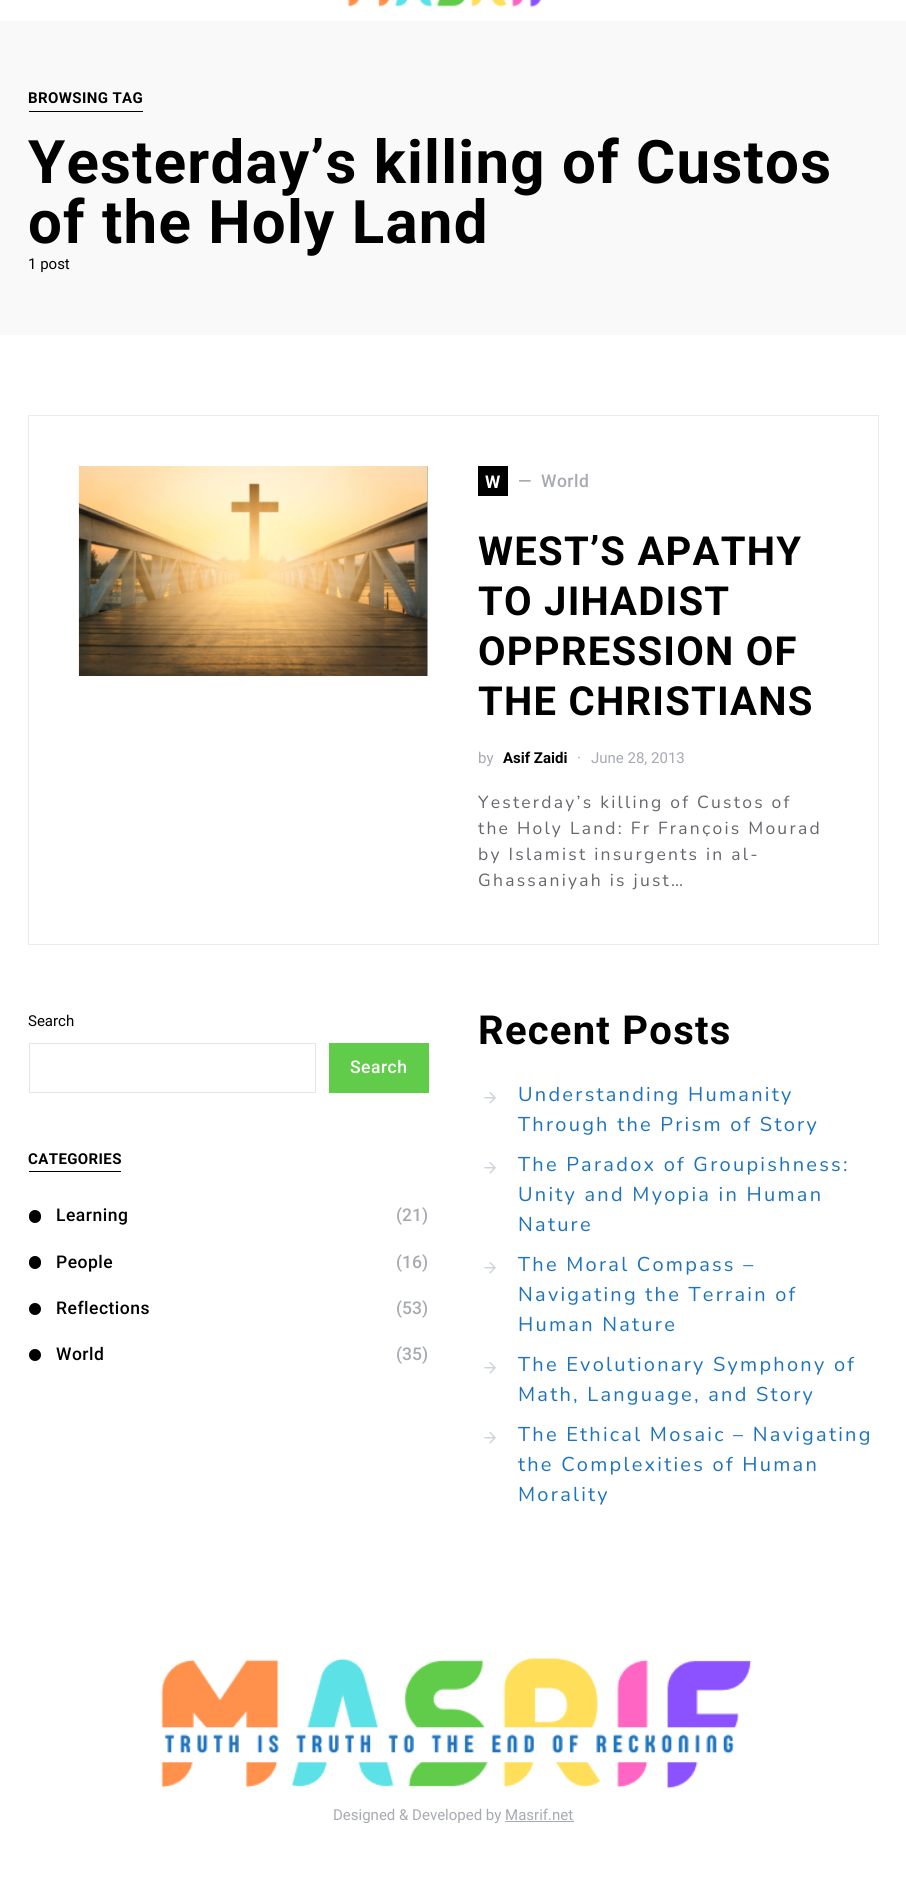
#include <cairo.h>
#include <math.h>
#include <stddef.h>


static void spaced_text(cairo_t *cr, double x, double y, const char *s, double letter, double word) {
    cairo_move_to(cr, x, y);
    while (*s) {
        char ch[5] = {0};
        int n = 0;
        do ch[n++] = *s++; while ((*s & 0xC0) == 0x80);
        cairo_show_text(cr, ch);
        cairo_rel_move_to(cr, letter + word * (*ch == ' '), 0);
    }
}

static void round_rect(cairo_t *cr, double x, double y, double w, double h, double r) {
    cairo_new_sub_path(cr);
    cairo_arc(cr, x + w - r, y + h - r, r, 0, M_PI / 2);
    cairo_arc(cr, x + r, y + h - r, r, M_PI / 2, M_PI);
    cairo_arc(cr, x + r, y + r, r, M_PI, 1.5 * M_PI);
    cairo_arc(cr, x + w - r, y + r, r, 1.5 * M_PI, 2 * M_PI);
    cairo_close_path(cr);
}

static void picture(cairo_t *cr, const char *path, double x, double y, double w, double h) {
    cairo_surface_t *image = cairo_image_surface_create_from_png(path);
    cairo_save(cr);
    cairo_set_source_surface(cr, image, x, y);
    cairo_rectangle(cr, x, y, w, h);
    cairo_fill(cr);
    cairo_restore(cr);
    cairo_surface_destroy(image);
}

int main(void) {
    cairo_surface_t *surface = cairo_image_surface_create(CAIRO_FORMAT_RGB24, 906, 1881);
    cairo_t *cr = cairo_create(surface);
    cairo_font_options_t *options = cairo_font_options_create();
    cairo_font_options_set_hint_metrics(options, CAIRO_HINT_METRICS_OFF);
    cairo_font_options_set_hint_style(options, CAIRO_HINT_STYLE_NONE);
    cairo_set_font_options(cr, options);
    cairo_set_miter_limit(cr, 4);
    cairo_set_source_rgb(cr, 1, 1, 1);
    cairo_paint(cr);
    picture(cr, "img1.png", 347, 0, 195, 8);
    cairo_set_source_rgb(cr, 0.973, 0.976, 0.98);
    cairo_rectangle(cr, 0, 21, 906, 314);
    cairo_fill(cr);
    cairo_select_font_face(cr, "Roboto", CAIRO_FONT_SLANT_NORMAL, CAIRO_FONT_WEIGHT_BOLD);
    cairo_set_font_size(cr, 15);
    cairo_set_source_rgb(cr, 0, 0, 0);
    spaced_text(cr, 28, 103, "BROWSING TAG", 0.4, 0);
    cairo_rectangle(cr, 29, 111, 114, 1);
    cairo_fill(cr);
    cairo_set_font_size(cr, 60);
    spaced_text(cr, 28, 183, "Yesterday’s killing of Custos", 1.25, 0);
    spaced_text(cr, 28, 243, "of the Holy Land", 1.25, 0);
    cairo_select_font_face(cr, "Roboto", CAIRO_FONT_SLANT_NORMAL, CAIRO_FONT_WEIGHT_NORMAL);
    cairo_set_font_size(cr, 15);
    cairo_move_to(cr, 28, 269);
    cairo_show_text(cr, "1 post");
    cairo_rectangle(cr, 28.5, 415.5, 850, 529);
    cairo_set_source_rgb(cr, 0.914, 0.925, 0.937);
    cairo_set_line_width(cr, 1);
    cairo_stroke(cr);
    cairo_set_source_rgb(cr, 0.714, 0.714, 0.714);
    cairo_rectangle(cr, 427, 466, 1, 210);
    cairo_fill(cr);
    picture(cr, "img2.png", 78, 466, 350, 210);
    cairo_set_source_rgb(cr, 0, 0, 0);
    cairo_rectangle(cr, 478, 466, 30, 30);
    cairo_fill(cr);
    cairo_select_font_face(cr, "Roboto", CAIRO_FONT_SLANT_NORMAL, CAIRO_FONT_WEIGHT_BOLD);
    cairo_set_font_size(cr, 17.5);
    cairo_set_source_rgb(cr, 1, 1, 1);
    spaced_text(cr, 485, 488, "W", 0.5, 0);
    cairo_select_font_face(cr, "Roboto Medium", CAIRO_FONT_SLANT_NORMAL, CAIRO_FONT_WEIGHT_NORMAL);
    cairo_set_source_rgb(cr, 0.659, 0.667, 0.698);
    spaced_text(cr, 518, 487, "—", 0.5, 0);
    spaced_text(cr, 541, 487, "World", 0.5, 0);
    cairo_select_font_face(cr, "Roboto", CAIRO_FONT_SLANT_NORMAL, CAIRO_FONT_WEIGHT_BOLD);
    cairo_set_font_size(cr, 40);
    cairo_set_source_rgb(cr, 0, 0, 0);
    spaced_text(cr, 478, 565, "WEST’S APATHY", 1.25, 0);
    spaced_text(cr, 478, 615, "TO JIHADIST", 1.25, 0);
    spaced_text(cr, 478, 665, "OPPRESSION OF", 1.25, 0);
    spaced_text(cr, 478, 715, "THE CHRISTIANS", 1.25, 0);
    cairo_select_font_face(cr, "Roboto", CAIRO_FONT_SLANT_NORMAL, CAIRO_FONT_WEIGHT_NORMAL);
    cairo_set_font_size(cr, 15);
    cairo_set_source_rgb(cr, 0.659, 0.667, 0.698);
    cairo_move_to(cr, 478, 763);
    cairo_show_text(cr, "by");
    cairo_select_font_face(cr, "Roboto", CAIRO_FONT_SLANT_NORMAL, CAIRO_FONT_WEIGHT_BOLD);
    cairo_set_source_rgb(cr, 0, 0, 0);
    cairo_move_to(cr, 503, 763);
    cairo_show_text(cr, "Asif Zaidi");
    cairo_select_font_face(cr, "Roboto", CAIRO_FONT_SLANT_NORMAL, CAIRO_FONT_WEIGHT_NORMAL);
    cairo_set_source_rgb(cr, 0.659, 0.667, 0.698);
    cairo_move_to(cr, 577, 763);
    cairo_show_text(cr, "·");
    cairo_move_to(cr, 591, 763);
    cairo_show_text(cr, "June 28, 2013");
    cairo_select_font_face(cr, "Nunito", CAIRO_FONT_SLANT_NORMAL, CAIRO_FONT_WEIGHT_NORMAL);
    cairo_set_font_size(cr, 17.5);
    cairo_set_source_rgb(cr, 0.4, 0.404, 0.427);
    spaced_text(cr, 478, 808, "Yesterday’s killing of Custos of", 2.25, 0);
    spaced_text(cr, 478, 834, "the Holy Land: Fr Franҫois Mourad", 2.25, 0);
    spaced_text(cr, 478, 860, "by Islamist insurgents in al-", 2.25, 0);
    spaced_text(cr, 478, 886, "Ghassaniyah is just…", 2.25, 0);
    cairo_select_font_face(cr, "Roboto", CAIRO_FONT_SLANT_NORMAL, CAIRO_FONT_WEIGHT_NORMAL);
    cairo_set_font_size(cr, 15);
    cairo_set_source_rgb(cr, 0, 0, 0);
    cairo_move_to(cr, 28, 1026);
    cairo_show_text(cr, "Search");
    cairo_rectangle(cr, 29.5, 1043.5, 286, 49);
    cairo_set_source_rgb(cr, 0.89, 0.898, 0.906);
    cairo_stroke(cr);
    cairo_set_source_rgb(cr, 0.38, 0.8, 0.29);
    cairo_rectangle(cr, 329, 1043, 100, 50);
    cairo_fill(cr);
    cairo_select_font_face(cr, "Roboto Medium", CAIRO_FONT_SLANT_NORMAL, CAIRO_FONT_WEIGHT_NORMAL);
    cairo_set_font_size(cr, 17.5);
    cairo_set_source_rgb(cr, 1, 1, 1);
    spaced_text(cr, 350, 1073, "Search", 0.5, 0);
    cairo_select_font_face(cr, "Roboto", CAIRO_FONT_SLANT_NORMAL, CAIRO_FONT_WEIGHT_BOLD);
    cairo_set_font_size(cr, 15);
    cairo_set_source_rgb(cr, 0, 0, 0);
    spaced_text(cr, 28, 1164, "CATEGORIES", 0.4, 0);
    cairo_rectangle(cr, 29, 1171, 92, 1);
    cairo_fill(cr);
    round_rect(cr, 29, 1210, 12, 13, 6);
    cairo_fill(cr);
    cairo_select_font_face(cr, "Roboto Medium", CAIRO_FONT_SLANT_NORMAL, CAIRO_FONT_WEIGHT_NORMAL);
    cairo_set_font_size(cr, 17.5);
    spaced_text(cr, 56, 1221, "Learning", 0.5, 0);
    cairo_set_source_rgb(cr, 0.659, 0.667, 0.698);
    cairo_move_to(cr, 396, 1221);
    cairo_show_text(cr, "(21)");
    cairo_set_source_rgb(cr, 0, 0, 0);
    round_rect(cr, 29, 1256, 12, 13, 6);
    cairo_fill(cr);
    spaced_text(cr, 56, 1268, "People", 0.5, 0);
    cairo_set_source_rgb(cr, 0.659, 0.667, 0.698);
    cairo_move_to(cr, 396, 1268);
    cairo_show_text(cr, "(16)");
    cairo_set_source_rgb(cr, 0, 0, 0);
    cairo_new_path(cr);
    cairo_arc(cr, 35, 1309, 6, 0, 2 * M_PI);
    cairo_fill(cr);
    spaced_text(cr, 56, 1314, "Reflections", 0.5, 0);
    cairo_set_source_rgb(cr, 0.659, 0.667, 0.698);
    cairo_move_to(cr, 396, 1314);
    cairo_show_text(cr, "(53)");
    cairo_set_source_rgb(cr, 0, 0, 0);
    cairo_new_path(cr);
    cairo_arc(cr, 35, 1355, 6, 0, 2 * M_PI);
    cairo_fill(cr);
    spaced_text(cr, 56, 1360, "World", 0.5, 0);
    cairo_set_source_rgb(cr, 0.659, 0.667, 0.698);
    cairo_move_to(cr, 396, 1360);
    cairo_show_text(cr, "(35)");
    cairo_select_font_face(cr, "Roboto", CAIRO_FONT_SLANT_NORMAL, CAIRO_FONT_WEIGHT_BOLD);
    cairo_set_font_size(cr, 40);
    cairo_set_source_rgb(cr, 0, 0, 0);
    spaced_text(cr, 478, 1044, "Recent Posts", 1.25, 0);
    picture(cr, "img3.png", 484, 1092, 12, 12);
    cairo_select_font_face(cr, "Nunito", CAIRO_FONT_SLANT_NORMAL, CAIRO_FONT_WEIGHT_NORMAL);
    cairo_set_font_size(cr, 20);
    cairo_set_source_rgb(cr, 0.118, 0.451, 0.745);
    spaced_text(cr, 518, 1101, "Understanding Humanity", 2.25, 0);
    spaced_text(cr, 518, 1131, "Through the Prism of Story", 2.25, 0);
    picture(cr, "img3.png", 484, 1162, 12, 12);
    spaced_text(cr, 518, 1171, "The Paradox of Groupishness:", 2.25, 0);
    spaced_text(cr, 518, 1201, "Unity and Myopia in Human", 2.25, 0);
    spaced_text(cr, 518, 1231, "Nature", 2.25, 0);
    picture(cr, "img3.png", 484, 1262, 12, 12);
    spaced_text(cr, 518, 1271, "The Moral Compass –", 2.25, 0);
    spaced_text(cr, 518, 1301, "Navigating the Terrain of", 2.25, 0);
    spaced_text(cr, 518, 1331, "Human Nature", 2.25, 0);
    picture(cr, "img3.png", 484, 1362, 12, 12);
    spaced_text(cr, 518, 1371, "The Evolutionary Symphony of", 2.25, 0);
    spaced_text(cr, 518, 1401, "Math, Language, and Story", 2.25, 0);
    picture(cr, "img3.png", 484, 1432, 12, 12);
    spaced_text(cr, 518, 1441, "The Ethical Mosaic – Navigating", 2.25, 0);
    spaced_text(cr, 518, 1471, "the Complexities of Human", 2.25, 0);
    spaced_text(cr, 518, 1501, "Morality", 2.25, 0);
    picture(cr, "img4.png", 161, 1658, 591, 131);
    cairo_select_font_face(cr, "Roboto", CAIRO_FONT_SLANT_NORMAL, CAIRO_FONT_WEIGHT_NORMAL);
    cairo_set_font_size(cr, 15);
    cairo_set_source_rgb(cr, 0.659, 0.667, 0.698);
    cairo_move_to(cr, 333, 1820);
    cairo_show_text(cr, "Designed & Developed by Masrif.net");
    cairo_rectangle(cr, 505, 1821, 69, 1);
    cairo_fill(cr);
    cairo_surface_write_to_png(surface, "page.png");
    cairo_font_options_destroy(options);
    cairo_destroy(cr);
    cairo_surface_destroy(surface);
    return 0;
}
